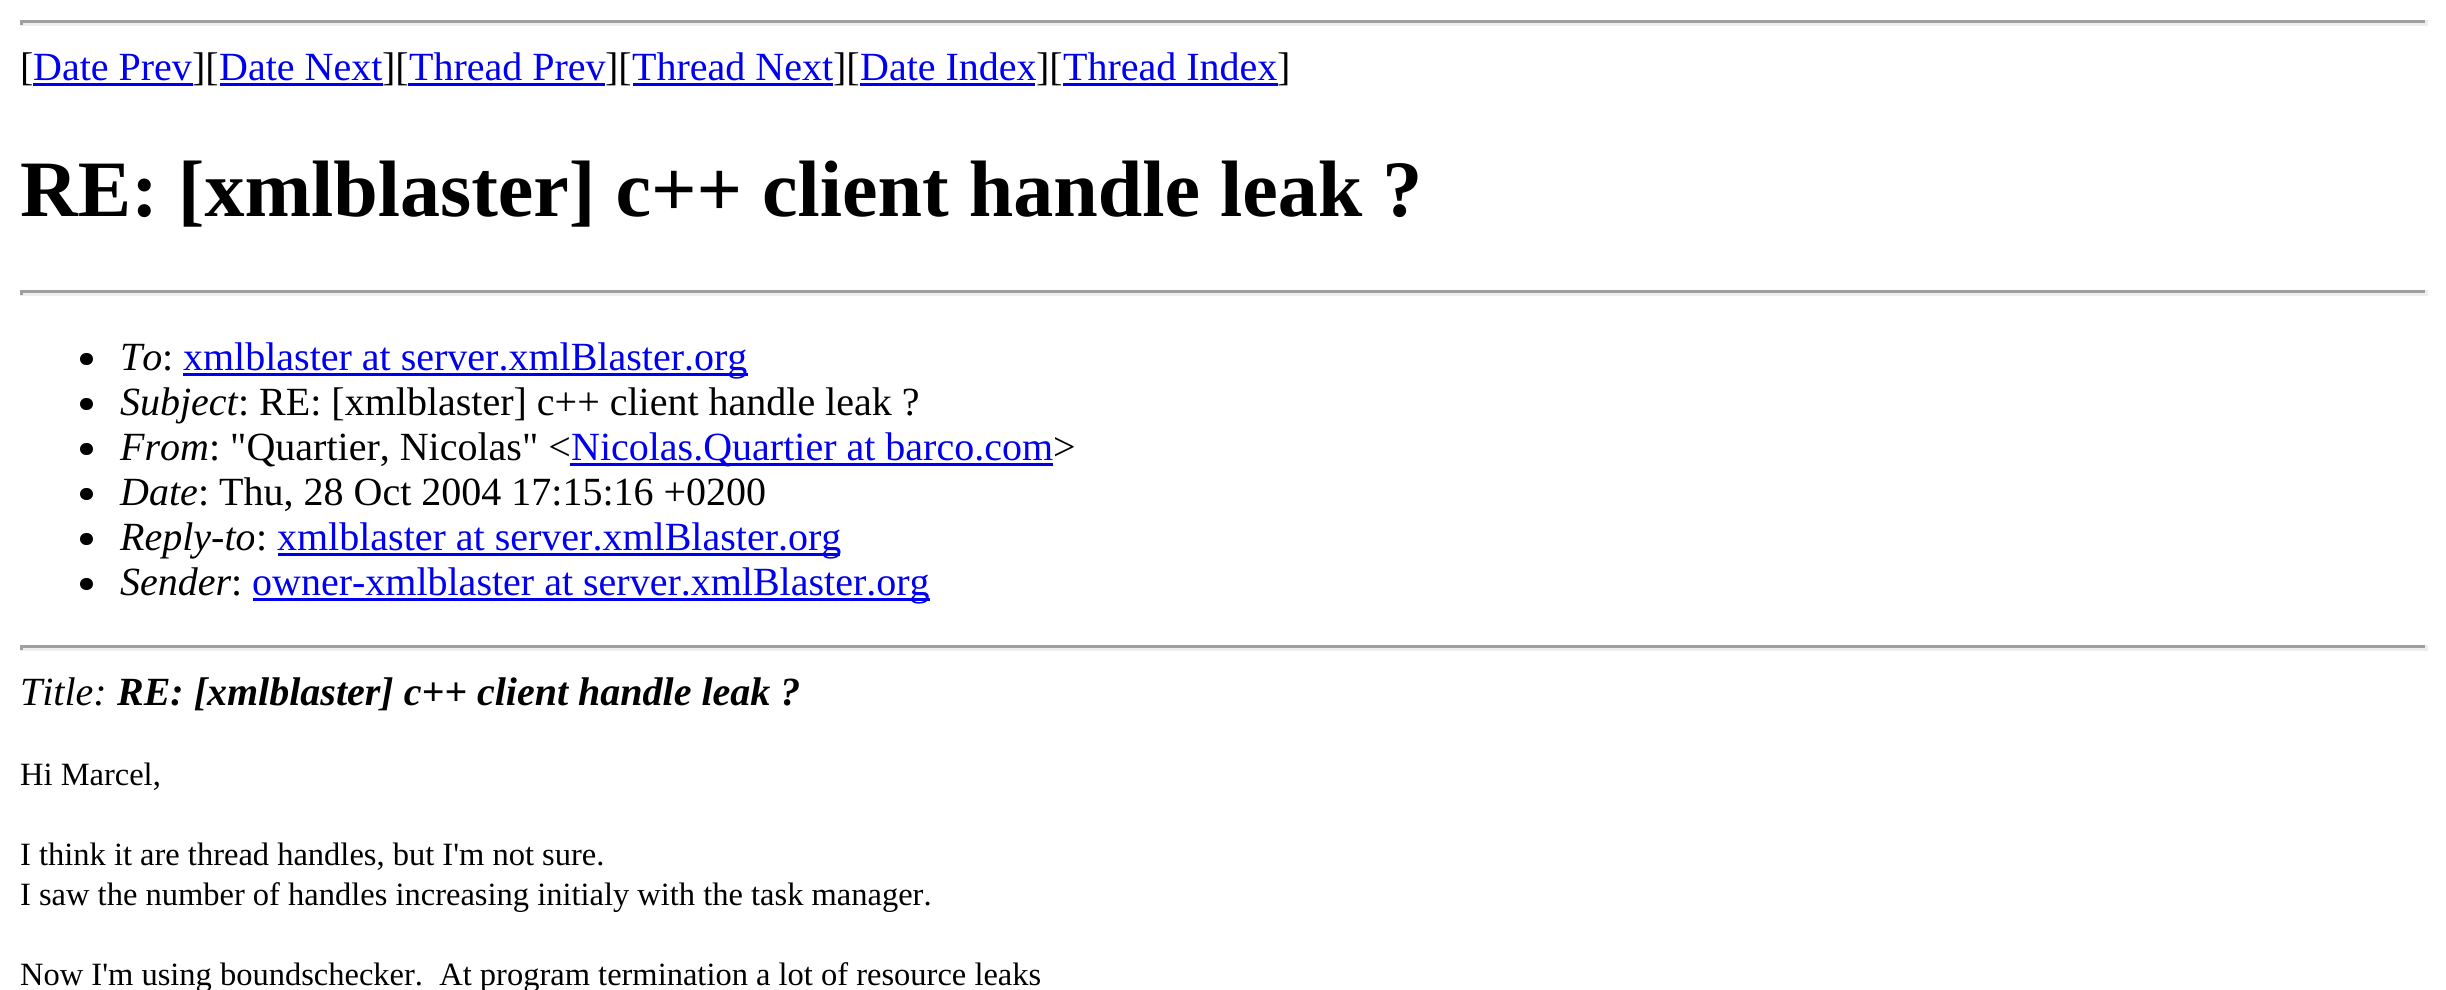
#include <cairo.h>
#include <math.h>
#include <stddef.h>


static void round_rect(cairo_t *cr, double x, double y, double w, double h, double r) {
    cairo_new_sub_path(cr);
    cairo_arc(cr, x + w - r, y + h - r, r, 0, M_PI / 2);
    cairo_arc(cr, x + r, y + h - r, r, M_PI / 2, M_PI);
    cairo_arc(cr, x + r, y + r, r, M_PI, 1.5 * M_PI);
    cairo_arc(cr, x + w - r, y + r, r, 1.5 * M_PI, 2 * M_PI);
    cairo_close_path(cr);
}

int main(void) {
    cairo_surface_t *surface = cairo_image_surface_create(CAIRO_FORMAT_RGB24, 2446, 990);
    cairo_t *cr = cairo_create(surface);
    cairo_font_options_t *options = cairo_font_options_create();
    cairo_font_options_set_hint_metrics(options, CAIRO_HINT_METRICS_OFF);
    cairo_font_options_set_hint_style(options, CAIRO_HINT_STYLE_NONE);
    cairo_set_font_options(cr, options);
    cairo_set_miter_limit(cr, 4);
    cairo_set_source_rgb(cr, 1, 1, 1);
    cairo_paint(cr);
    cairo_set_source_rgb(cr, 0.624, 0.624, 0.624);
    cairo_rectangle(cr, 20, 20, 2408, 3);
    cairo_fill(cr);
    cairo_set_source_rgb(cr, 0.933, 0.933, 0.933);
    cairo_rectangle(cr, 2425, 20, 3, 5);
    cairo_fill(cr);
    cairo_rectangle(cr, 20, 23, 2408, 3);
    cairo_fill(cr);
    cairo_set_source_rgb(cr, 0.624, 0.624, 0.624);
    cairo_rectangle(cr, 20, 20, 3, 5);
    cairo_fill(cr);
    cairo_select_font_face(cr, "Liberation Serif", CAIRO_FONT_SLANT_NORMAL, CAIRO_FONT_WEIGHT_NORMAL);
    cairo_set_font_size(cr, 40);
    cairo_set_source_rgb(cr, 0, 0, 0);
    cairo_move_to(cr, 20, 80);
    cairo_show_text(cr, "[");
    cairo_set_source_rgb(cr, 0, 0, 0.933);
    cairo_move_to(cr, 33, 80);
    cairo_show_text(cr, "Date Prev");
    cairo_rectangle(cr, 33, 83, 160, 3);
    cairo_fill(cr);
    cairo_set_source_rgb(cr, 0, 0, 0);
    cairo_move_to(cr, 192, 80);
    cairo_show_text(cr, "][");
    cairo_set_source_rgb(cr, 0, 0, 0.933);
    cairo_move_to(cr, 219, 80);
    cairo_show_text(cr, "Date Next");
    cairo_rectangle(cr, 220, 83, 163, 3);
    cairo_fill(cr);
    cairo_set_source_rgb(cr, 0, 0, 0);
    cairo_move_to(cr, 382, 80);
    cairo_show_text(cr, "][");
    cairo_set_source_rgb(cr, 0, 0, 0.933);
    cairo_move_to(cr, 409, 80);
    cairo_show_text(cr, "Thread Prev");
    cairo_rectangle(cr, 408, 83, 197, 3);
    cairo_fill(cr);
    cairo_set_source_rgb(cr, 0, 0, 0);
    cairo_move_to(cr, 605, 80);
    cairo_show_text(cr, "][");
    cairo_set_source_rgb(cr, 0, 0, 0.933);
    cairo_move_to(cr, 632, 80);
    cairo_show_text(cr, "Thread Next");
    cairo_rectangle(cr, 633, 83, 200, 3);
    cairo_fill(cr);
    cairo_set_source_rgb(cr, 0, 0, 0);
    cairo_move_to(cr, 833, 80);
    cairo_show_text(cr, "][");
    cairo_set_source_rgb(cr, 0, 0, 0.933);
    cairo_move_to(cr, 860, 80);
    cairo_show_text(cr, "Date Index");
    cairo_rectangle(cr, 860, 83, 175, 3);
    cairo_fill(cr);
    cairo_set_source_rgb(cr, 0, 0, 0);
    cairo_move_to(cr, 1036, 80);
    cairo_show_text(cr, "][");
    cairo_set_source_rgb(cr, 0, 0, 0.933);
    cairo_move_to(cr, 1063, 80);
    cairo_show_text(cr, "Thread Index");
    cairo_rectangle(cr, 1063, 83, 215, 3);
    cairo_fill(cr);
    cairo_set_source_rgb(cr, 0, 0, 0);
    cairo_move_to(cr, 1277, 80);
    cairo_show_text(cr, "]");
    cairo_select_font_face(cr, "Liberation Serif", CAIRO_FONT_SLANT_NORMAL, CAIRO_FONT_WEIGHT_BOLD);
    cairo_set_font_size(cr, 80);
    cairo_move_to(cr, 20, 216);
    cairo_show_text(cr, "RE: [xmlblaster] c++ client handle leak ?");
    cairo_set_source_rgb(cr, 0.624, 0.624, 0.624);
    cairo_rectangle(cr, 20, 290, 2408, 3);
    cairo_fill(cr);
    cairo_set_source_rgb(cr, 0.933, 0.933, 0.933);
    cairo_rectangle(cr, 2425, 290, 3, 5);
    cairo_fill(cr);
    cairo_rectangle(cr, 20, 293, 2408, 3);
    cairo_fill(cr);
    cairo_set_source_rgb(cr, 0.624, 0.624, 0.624);
    cairo_rectangle(cr, 20, 290, 3, 5);
    cairo_fill(cr);
    cairo_set_source_rgb(cr, 0, 0, 0);
    round_rect(cr, 80, 353, 13, 12, 6);
    cairo_fill(cr);
    cairo_select_font_face(cr, "Liberation Serif", CAIRO_FONT_SLANT_ITALIC, CAIRO_FONT_WEIGHT_NORMAL);
    cairo_set_font_size(cr, 40);
    cairo_move_to(cr, 120, 370);
    cairo_show_text(cr, "To");
    cairo_select_font_face(cr, "Liberation Serif", CAIRO_FONT_SLANT_NORMAL, CAIRO_FONT_WEIGHT_NORMAL);
    cairo_move_to(cr, 162, 370);
    cairo_show_text(cr, ":");
    cairo_set_source_rgb(cr, 0, 0, 0.933);
    cairo_rectangle(cr, 183, 373, 565, 3);
    cairo_fill(cr);
    cairo_move_to(cr, 183, 370);
    cairo_show_text(cr, "xmlblaster at server.xmlBlaster.org");
    cairo_set_source_rgb(cr, 0, 0, 0);
    round_rect(cr, 80, 398, 13, 12, 6);
    cairo_fill(cr);
    cairo_select_font_face(cr, "Liberation Serif", CAIRO_FONT_SLANT_ITALIC, CAIRO_FONT_WEIGHT_NORMAL);
    cairo_move_to(cr, 120, 415);
    cairo_show_text(cr, "Subject");
    cairo_select_font_face(cr, "Liberation Serif", CAIRO_FONT_SLANT_NORMAL, CAIRO_FONT_WEIGHT_NORMAL);
    cairo_move_to(cr, 238, 415);
    cairo_show_text(cr, ": RE: [xmlblaster] c++ client handle leak ?");
    round_rect(cr, 80, 443, 13, 12, 6);
    cairo_fill(cr);
    cairo_select_font_face(cr, "Liberation Serif", CAIRO_FONT_SLANT_ITALIC, CAIRO_FONT_WEIGHT_NORMAL);
    cairo_move_to(cr, 120, 460);
    cairo_show_text(cr, "From");
    cairo_select_font_face(cr, "Liberation Serif", CAIRO_FONT_SLANT_NORMAL, CAIRO_FONT_WEIGHT_NORMAL);
    cairo_move_to(cr, 209, 460);
    cairo_show_text(cr, ": \"Quartier, Nicolas\" <");
    cairo_set_source_rgb(cr, 0, 0, 0.933);
    cairo_rectangle(cr, 570, 463, 483, 3);
    cairo_fill(cr);
    cairo_move_to(cr, 571, 460);
    cairo_show_text(cr, "Nicolas.Quartier at barco.com");
    cairo_set_source_rgb(cr, 0, 0, 0);
    cairo_move_to(cr, 1053, 460);
    cairo_show_text(cr, ">");
    round_rect(cr, 80, 488, 13, 12, 6);
    cairo_fill(cr);
    cairo_select_font_face(cr, "Liberation Serif", CAIRO_FONT_SLANT_ITALIC, CAIRO_FONT_WEIGHT_NORMAL);
    cairo_move_to(cr, 120, 505);
    cairo_show_text(cr, "Date");
    cairo_select_font_face(cr, "Liberation Serif", CAIRO_FONT_SLANT_NORMAL, CAIRO_FONT_WEIGHT_NORMAL);
    cairo_move_to(cr, 198, 505);
    cairo_show_text(cr, ": Thu, 28 Oct 2004 17:15:16 +0200");
    round_rect(cr, 80, 533, 13, 12, 6);
    cairo_fill(cr);
    cairo_select_font_face(cr, "Liberation Serif", CAIRO_FONT_SLANT_ITALIC, CAIRO_FONT_WEIGHT_NORMAL);
    cairo_move_to(cr, 120, 550);
    cairo_show_text(cr, "Reply-to");
    cairo_select_font_face(cr, "Liberation Serif", CAIRO_FONT_SLANT_NORMAL, CAIRO_FONT_WEIGHT_NORMAL);
    cairo_move_to(cr, 256, 550);
    cairo_show_text(cr, ":");
    cairo_set_source_rgb(cr, 0, 0, 0.933);
    cairo_rectangle(cr, 278, 553, 562, 3);
    cairo_fill(cr);
    cairo_move_to(cr, 277, 550);
    cairo_show_text(cr, "xmlblaster at server.xmlBlaster.org");
    cairo_set_source_rgb(cr, 0, 0, 0);
    round_rect(cr, 80, 578, 13, 12, 6);
    cairo_fill(cr);
    cairo_select_font_face(cr, "Liberation Serif", CAIRO_FONT_SLANT_ITALIC, CAIRO_FONT_WEIGHT_NORMAL);
    cairo_move_to(cr, 120, 595);
    cairo_show_text(cr, "Sender");
    cairo_select_font_face(cr, "Liberation Serif", CAIRO_FONT_SLANT_NORMAL, CAIRO_FONT_WEIGHT_NORMAL);
    cairo_move_to(cr, 231, 595);
    cairo_show_text(cr, ":");
    cairo_set_source_rgb(cr, 0, 0, 0.933);
    cairo_rectangle(cr, 253, 598, 677, 3);
    cairo_fill(cr);
    cairo_move_to(cr, 252, 595);
    cairo_show_text(cr, "owner-xmlblaster at server.xmlBlaster.org");
    cairo_set_source_rgb(cr, 0.624, 0.624, 0.624);
    cairo_rectangle(cr, 20, 645, 2408, 3);
    cairo_fill(cr);
    cairo_set_source_rgb(cr, 0.933, 0.933, 0.933);
    cairo_rectangle(cr, 2425, 645, 3, 5);
    cairo_fill(cr);
    cairo_rectangle(cr, 20, 648, 2408, 3);
    cairo_fill(cr);
    cairo_set_source_rgb(cr, 0.624, 0.624, 0.624);
    cairo_rectangle(cr, 20, 645, 3, 5);
    cairo_fill(cr);
    cairo_select_font_face(cr, "Liberation Serif", CAIRO_FONT_SLANT_ITALIC, CAIRO_FONT_WEIGHT_NORMAL);
    cairo_set_source_rgb(cr, 0, 0, 0);
    cairo_move_to(cr, 20, 705);
    cairo_show_text(cr, "Title:");
    cairo_select_font_face(cr, "Liberation Serif", CAIRO_FONT_SLANT_ITALIC, CAIRO_FONT_WEIGHT_BOLD);
    cairo_move_to(cr, 117, 705);
    cairo_show_text(cr, "RE: [xmlblaster] c++ client handle leak ?");
    cairo_select_font_face(cr, "Liberation Serif", CAIRO_FONT_SLANT_NORMAL, CAIRO_FONT_WEIGHT_NORMAL);
    cairo_set_font_size(cr, 32.5);
    cairo_move_to(cr, 20, 785);
    cairo_show_text(cr, "Hi Marcel,");
    cairo_move_to(cr, 20, 865);
    cairo_show_text(cr, "I think it are thread handles, but I'm not sure.");
    cairo_move_to(cr, 20, 905);
    cairo_show_text(cr, "I saw the number of handles increasing initialy with the task manager.");
    cairo_move_to(cr, 20, 985);
    cairo_show_text(cr, "Now I'm using boundschecker.  At program termination a lot of resource leaks");
    cairo_surface_write_to_png(surface, "page.png");
    cairo_font_options_destroy(options);
    cairo_destroy(cr);
    cairo_surface_destroy(surface);
    return 0;
}
